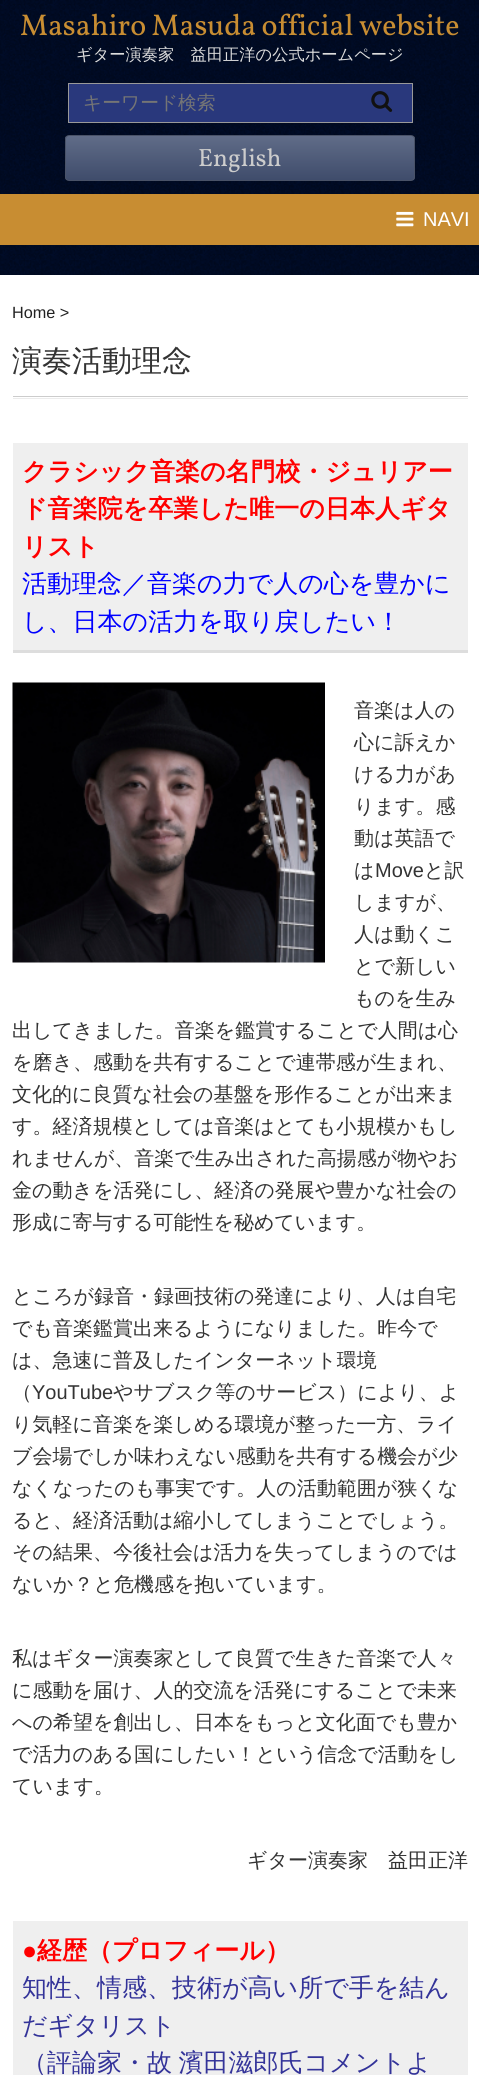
#include <cairo.h>
#include <math.h>
#include <stddef.h>


static void spaced_text(cairo_t *cr, double x, double y, const char *s, double letter, double word) {
    cairo_move_to(cr, x, y);
    while (*s) {
        char ch[5] = {0};
        int n = 0;
        do ch[n++] = *s++; while ((*s & 0xC0) == 0x80);
        cairo_show_text(cr, ch);
        cairo_rel_move_to(cr, letter + word * (*ch == ' '), 0);
    }
}

static void round_rect(cairo_t *cr, double x, double y, double w, double h, double r) {
    cairo_new_sub_path(cr);
    cairo_arc(cr, x + w - r, y + h - r, r, 0, M_PI / 2);
    cairo_arc(cr, x + r, y + h - r, r, M_PI / 2, M_PI);
    cairo_arc(cr, x + r, y + r, r, M_PI, 1.5 * M_PI);
    cairo_arc(cr, x + w - r, y + r, r, 1.5 * M_PI, 2 * M_PI);
    cairo_close_path(cr);
}

static void picture(cairo_t *cr, const char *path, double x, double y, double w, double h) {
    cairo_surface_t *image = cairo_image_surface_create_from_png(path);
    cairo_save(cr);
    cairo_set_source_surface(cr, image, x, y);
    cairo_rectangle(cr, x, y, w, h);
    cairo_fill(cr);
    cairo_restore(cr);
    cairo_surface_destroy(image);
}

int main(void) {
    cairo_surface_t *surface = cairo_image_surface_create(CAIRO_FORMAT_RGB24, 479, 2075);
    cairo_t *cr = cairo_create(surface);
    cairo_font_options_t *options = cairo_font_options_create();
    cairo_font_options_set_hint_metrics(options, CAIRO_HINT_METRICS_OFF);
    cairo_font_options_set_hint_style(options, CAIRO_HINT_STYLE_NONE);
    cairo_set_font_options(cr, options);
    cairo_set_miter_limit(cr, 4);
    cairo_pattern_t *gradient;
    cairo_set_source_rgb(cr, 1, 1, 1);
    cairo_paint(cr);
    picture(cr, "img1.png", 0, 0, 479, 275);
    cairo_select_font_face(cr, "Vollkorn", CAIRO_FONT_SLANT_NORMAL, CAIRO_FONT_WEIGHT_NORMAL);
    cairo_set_font_size(cr, 30);
    cairo_set_source_rgb(cr, 0.784, 0.553, 0.196);
    spaced_text(cr, 20, 35, "Masahiro Masuda official website", 0, -0.5);
    cairo_select_font_face(cr, "WenQuanYi Zen Hei Medium", CAIRO_FONT_SLANT_NORMAL, CAIRO_FONT_WEIGHT_NORMAL);
    cairo_set_font_size(cr, 16.25);
    cairo_set_source_rgb(cr, 0.867, 0.867, 0.867);
    cairo_move_to(cr, 76, 60);
    cairo_show_text(cr, "ギター演奏家　益田正洋の公式ホームページ");
    cairo_set_source_rgb(cr, 0.161, 0.22, 0.486);
    cairo_rectangle(cr, 68.5, 83.5, 344, 39);
    cairo_fill_preserve(cr);
    cairo_set_source_rgb(cr, 0.6, 0.6, 0.6);
    cairo_set_line_width(cr, 1);
    cairo_stroke(cr);
    cairo_set_font_size(cr, 18.75);
    cairo_set_source_rgb(cr, 0.459, 0.459, 0.459);
    cairo_move_to(cr, 83, 109);
    cairo_show_text(cr, "キーワード検索");
    picture(cr, "img2.png", 371, 91, 22, 21);
    cairo_save(cr);
    round_rect(cr, 65, 135, 350, 46, 4);
    cairo_clip(cr);
    gradient = cairo_pattern_create_linear(240, 136, 240, 180);
    cairo_pattern_add_color_stop_rgba(gradient, 0, 0.376, 0.424, 0.533, 1);
    cairo_pattern_add_color_stop_rgba(gradient, 1, 0.247, 0.298, 0.42, 1);
    cairo_set_source(cr, gradient);
    cairo_pattern_destroy(gradient);
    cairo_rectangle(cr, 65, 136, 350, 44);
    cairo_fill(cr);
    cairo_restore(cr);
    round_rect(cr, 65.5, 135.5, 349, 45, 3.5);
    cairo_set_source_rgb(cr, 0.286, 0.322, 0.404);
    cairo_stroke(cr);
    cairo_select_font_face(cr, "Vollkorn", CAIRO_FONT_SLANT_NORMAL, CAIRO_FONT_WEIGHT_NORMAL);
    cairo_set_font_size(cr, 25);
    cairo_set_source_rgb(cr, 0.8, 0.8, 0.8);
    cairo_move_to(cr, 198, 166);
    cairo_show_text(cr, "English");
    cairo_set_source_rgb(cr, 0.784, 0.553, 0.196);
    cairo_rectangle(cr, 0, 194, 479, 51);
    cairo_fill(cr);
    picture(cr, "img3.png", 396, 211, 18, 16);
    cairo_select_font_face(cr, "Liberation Sans", CAIRO_FONT_SLANT_NORMAL, CAIRO_FONT_WEIGHT_NORMAL);
    cairo_set_font_size(cr, 20);
    cairo_set_source_rgb(cr, 1, 1, 1);
    cairo_move_to(cr, 423, 226);
    cairo_show_text(cr, "NAVI");
    cairo_set_font_size(cr, 16.25);
    cairo_set_source_rgb(cr, 0.133, 0.133, 0.133);
    cairo_move_to(cr, 12, 318);
    cairo_show_text(cr, "Home >");
    cairo_set_source_rgb(cr, 0.925, 0.925, 0.925);
    cairo_new_path(cr);
    cairo_move_to(cr, 13, 398);
    cairo_line_to(cr, 13, 399);
    cairo_line_to(cr, 468, 399);
    cairo_line_to(cr, 468, 340);
    cairo_line_to(cr, 468, 398);
    cairo_close_path(cr);
    cairo_fill(cr);
    cairo_set_source_rgb(cr, 0.8, 0.8, 0.8);
    cairo_rectangle(cr, 13, 396, 455, 1);
    cairo_fill(cr);
    cairo_select_font_face(cr, "WenQuanYi Zen Hei Medium", CAIRO_FONT_SLANT_NORMAL, CAIRO_FONT_WEIGHT_NORMAL);
    cairo_set_font_size(cr, 30);
    cairo_set_source_rgb(cr, 0.2, 0.2, 0.2);
    cairo_move_to(cr, 12, 371);
    cairo_show_text(cr, "演奏活動理念");
    cairo_set_source_rgb(cr, 0.937, 0.937, 0.937);
    cairo_rectangle(cr, 13, 443, 455, 207);
    cairo_fill(cr);
    cairo_set_source_rgb(cr, 0.867, 0.867, 0.867);
    cairo_rectangle(cr, 13, 650, 455, 3);
    cairo_fill(cr);
    cairo_select_font_face(cr, "WenQuanYi Zen Hei", CAIRO_FONT_SLANT_NORMAL, CAIRO_FONT_WEIGHT_BOLD);
    cairo_set_font_size(cr, 25);
    cairo_set_source_rgb(cr, 1, 0, 0);
    cairo_move_to(cr, 22, 480);
    cairo_show_text(cr, "クラシック音楽の名門校・ジュリアー");
    cairo_move_to(cr, 22, 517);
    cairo_show_text(cr, "ド音楽院を卒業した唯一の日本人ギタ");
    cairo_move_to(cr, 22, 555);
    cairo_show_text(cr, "リスト");
    cairo_select_font_face(cr, "WenQuanYi Zen Hei Medium", CAIRO_FONT_SLANT_NORMAL, CAIRO_FONT_WEIGHT_NORMAL);
    cairo_set_source_rgb(cr, 0, 0, 1);
    cairo_move_to(cr, 22, 592);
    cairo_show_text(cr, "活動理念／音楽の力で人の心を豊かに");
    cairo_move_to(cr, 22, 630);
    cairo_show_text(cr, "し、日本の活力を取り戻したい！");
    picture(cr, "img4.png", 12, 682, 313, 281);
    cairo_set_font_size(cr, 20);
    cairo_set_source_rgb(cr, 0.2, 0.2, 0.2);
    cairo_move_to(cr, 354, 717);
    cairo_show_text(cr, "音楽は人の");
    cairo_move_to(cr, 354, 749);
    cairo_show_text(cr, "心に訴えか");
    cairo_move_to(cr, 354, 781);
    cairo_show_text(cr, "ける力があ");
    cairo_move_to(cr, 354, 813);
    cairo_show_text(cr, "ります。感");
    cairo_move_to(cr, 354, 845);
    cairo_show_text(cr, "動は英語で");
    cairo_move_to(cr, 354, 877);
    cairo_show_text(cr, "は");
    cairo_select_font_face(cr, "Liberation Sans", CAIRO_FONT_SLANT_NORMAL, CAIRO_FONT_WEIGHT_NORMAL);
    cairo_move_to(cr, 375, 877);
    cairo_show_text(cr, "Move");
    cairo_select_font_face(cr, "WenQuanYi Zen Hei Medium", CAIRO_FONT_SLANT_NORMAL, CAIRO_FONT_WEIGHT_NORMAL);
    cairo_move_to(cr, 424, 877);
    cairo_show_text(cr, "と訳");
    cairo_move_to(cr, 354, 909);
    cairo_show_text(cr, "しますが、");
    cairo_move_to(cr, 354, 941);
    cairo_show_text(cr, "人は動くこ");
    cairo_move_to(cr, 354, 973);
    cairo_show_text(cr, "とで新しい");
    cairo_move_to(cr, 354, 1005);
    cairo_show_text(cr, "ものを生み");
    cairo_move_to(cr, 12, 1037);
    cairo_show_text(cr, "出してきました。音楽を鑑賞することで人間は心");
    cairo_move_to(cr, 12, 1069);
    cairo_show_text(cr, "を磨き、感動を共有することで連帯感が生まれ、");
    cairo_move_to(cr, 12, 1101);
    cairo_show_text(cr, "文化的に良質な社会の基盤を形作ることが出来ま");
    cairo_move_to(cr, 12, 1133);
    cairo_show_text(cr, "す。経済規模としては音楽はとても小規模かもし");
    cairo_move_to(cr, 12, 1165);
    cairo_show_text(cr, "れませんが、音楽で生み出された高揚感が物やお");
    cairo_move_to(cr, 12, 1197);
    cairo_show_text(cr, "金の動きを活発にし、経済の発展や豊かな社会の");
    cairo_move_to(cr, 12, 1229);
    cairo_show_text(cr, "形成に寄与する可能性を秘めています。");
    cairo_move_to(cr, 12, 1303);
    cairo_show_text(cr, "ところが録音・録画技術の発達により、人は自宅");
    cairo_move_to(cr, 12, 1335);
    cairo_show_text(cr, "でも音楽鑑賞出来るようになりました。昨今で");
    cairo_move_to(cr, 12, 1367);
    cairo_show_text(cr, "は、急速に普及したインターネット環境");
    cairo_move_to(cr, 12, 1399);
    cairo_show_text(cr, "（");
    cairo_select_font_face(cr, "Liberation Sans", CAIRO_FONT_SLANT_NORMAL, CAIRO_FONT_WEIGHT_NORMAL);
    cairo_move_to(cr, 32, 1399);
    cairo_show_text(cr, "YouTube");
    cairo_select_font_face(cr, "WenQuanYi Zen Hei Medium", CAIRO_FONT_SLANT_NORMAL, CAIRO_FONT_WEIGHT_NORMAL);
    cairo_move_to(cr, 113, 1399);
    cairo_show_text(cr, "やサブスク等のサービス）により、よ");
    cairo_move_to(cr, 12, 1431);
    cairo_show_text(cr, "り気軽に音楽を楽しめる環境が整った一方、ライ");
    cairo_move_to(cr, 12, 1463);
    cairo_show_text(cr, "ブ会場でしか味わえない感動を共有する機会が少");
    cairo_move_to(cr, 12, 1495);
    cairo_show_text(cr, "なくなったのも事実です。人の活動範囲が狭くな");
    cairo_move_to(cr, 12, 1527);
    cairo_show_text(cr, "ると、経済活動は縮小してしまうことでしょう。");
    cairo_move_to(cr, 12, 1559);
    cairo_show_text(cr, "その結果、今後社会は活力を失ってしまうのでは");
    cairo_move_to(cr, 12, 1591);
    cairo_show_text(cr, "ないか？と危機感を抱いています。");
    cairo_move_to(cr, 12, 1665);
    cairo_show_text(cr, "私はギター演奏家として良質で生きた音楽で人々");
    cairo_move_to(cr, 12, 1697);
    cairo_show_text(cr, "に感動を届け、人的交流を活発にすることで未来");
    cairo_move_to(cr, 12, 1729);
    cairo_show_text(cr, "への希望を創出し、日本をもっと文化面でも豊か");
    cairo_move_to(cr, 12, 1761);
    cairo_show_text(cr, "で活力のある国にしたい！という信念で活動をし");
    cairo_move_to(cr, 12, 1793);
    cairo_show_text(cr, "ています。");
    cairo_move_to(cr, 247, 1867);
    cairo_show_text(cr, "ギター演奏家　益田正洋");
    cairo_set_source_rgb(cr, 0.937, 0.937, 0.937);
    cairo_rectangle(cr, 13, 1921, 455, 154);
    cairo_fill(cr);
    cairo_select_font_face(cr, "Liberation Sans", CAIRO_FONT_SLANT_NORMAL, CAIRO_FONT_WEIGHT_BOLD);
    cairo_set_font_size(cr, 25);
    cairo_set_source_rgb(cr, 1, 0, 0);
    cairo_move_to(cr, 22, 1959);
    cairo_show_text(cr, "●");
    cairo_select_font_face(cr, "WenQuanYi Zen Hei", CAIRO_FONT_SLANT_NORMAL, CAIRO_FONT_WEIGHT_BOLD);
    cairo_move_to(cr, 37, 1959);
    cairo_show_text(cr, "経歴（プロフィール）");
    cairo_select_font_face(cr, "WenQuanYi Zen Hei Medium", CAIRO_FONT_SLANT_NORMAL, CAIRO_FONT_WEIGHT_NORMAL);
    cairo_set_source_rgb(cr, 0.2, 0.2, 0.6);
    cairo_move_to(cr, 22, 1996);
    cairo_show_text(cr, "知性、情感、技術が高い所で手を結ん");
    cairo_move_to(cr, 22, 2034);
    cairo_show_text(cr, "だギタリスト");
    spaced_text(cr, 22, 2071, "（評論家・故 濱田滋郎氏コメントよ", 0, -1);
    cairo_surface_write_to_png(surface, "page.png");
    cairo_font_options_destroy(options);
    cairo_destroy(cr);
    cairo_surface_destroy(surface);
    return 0;
}
